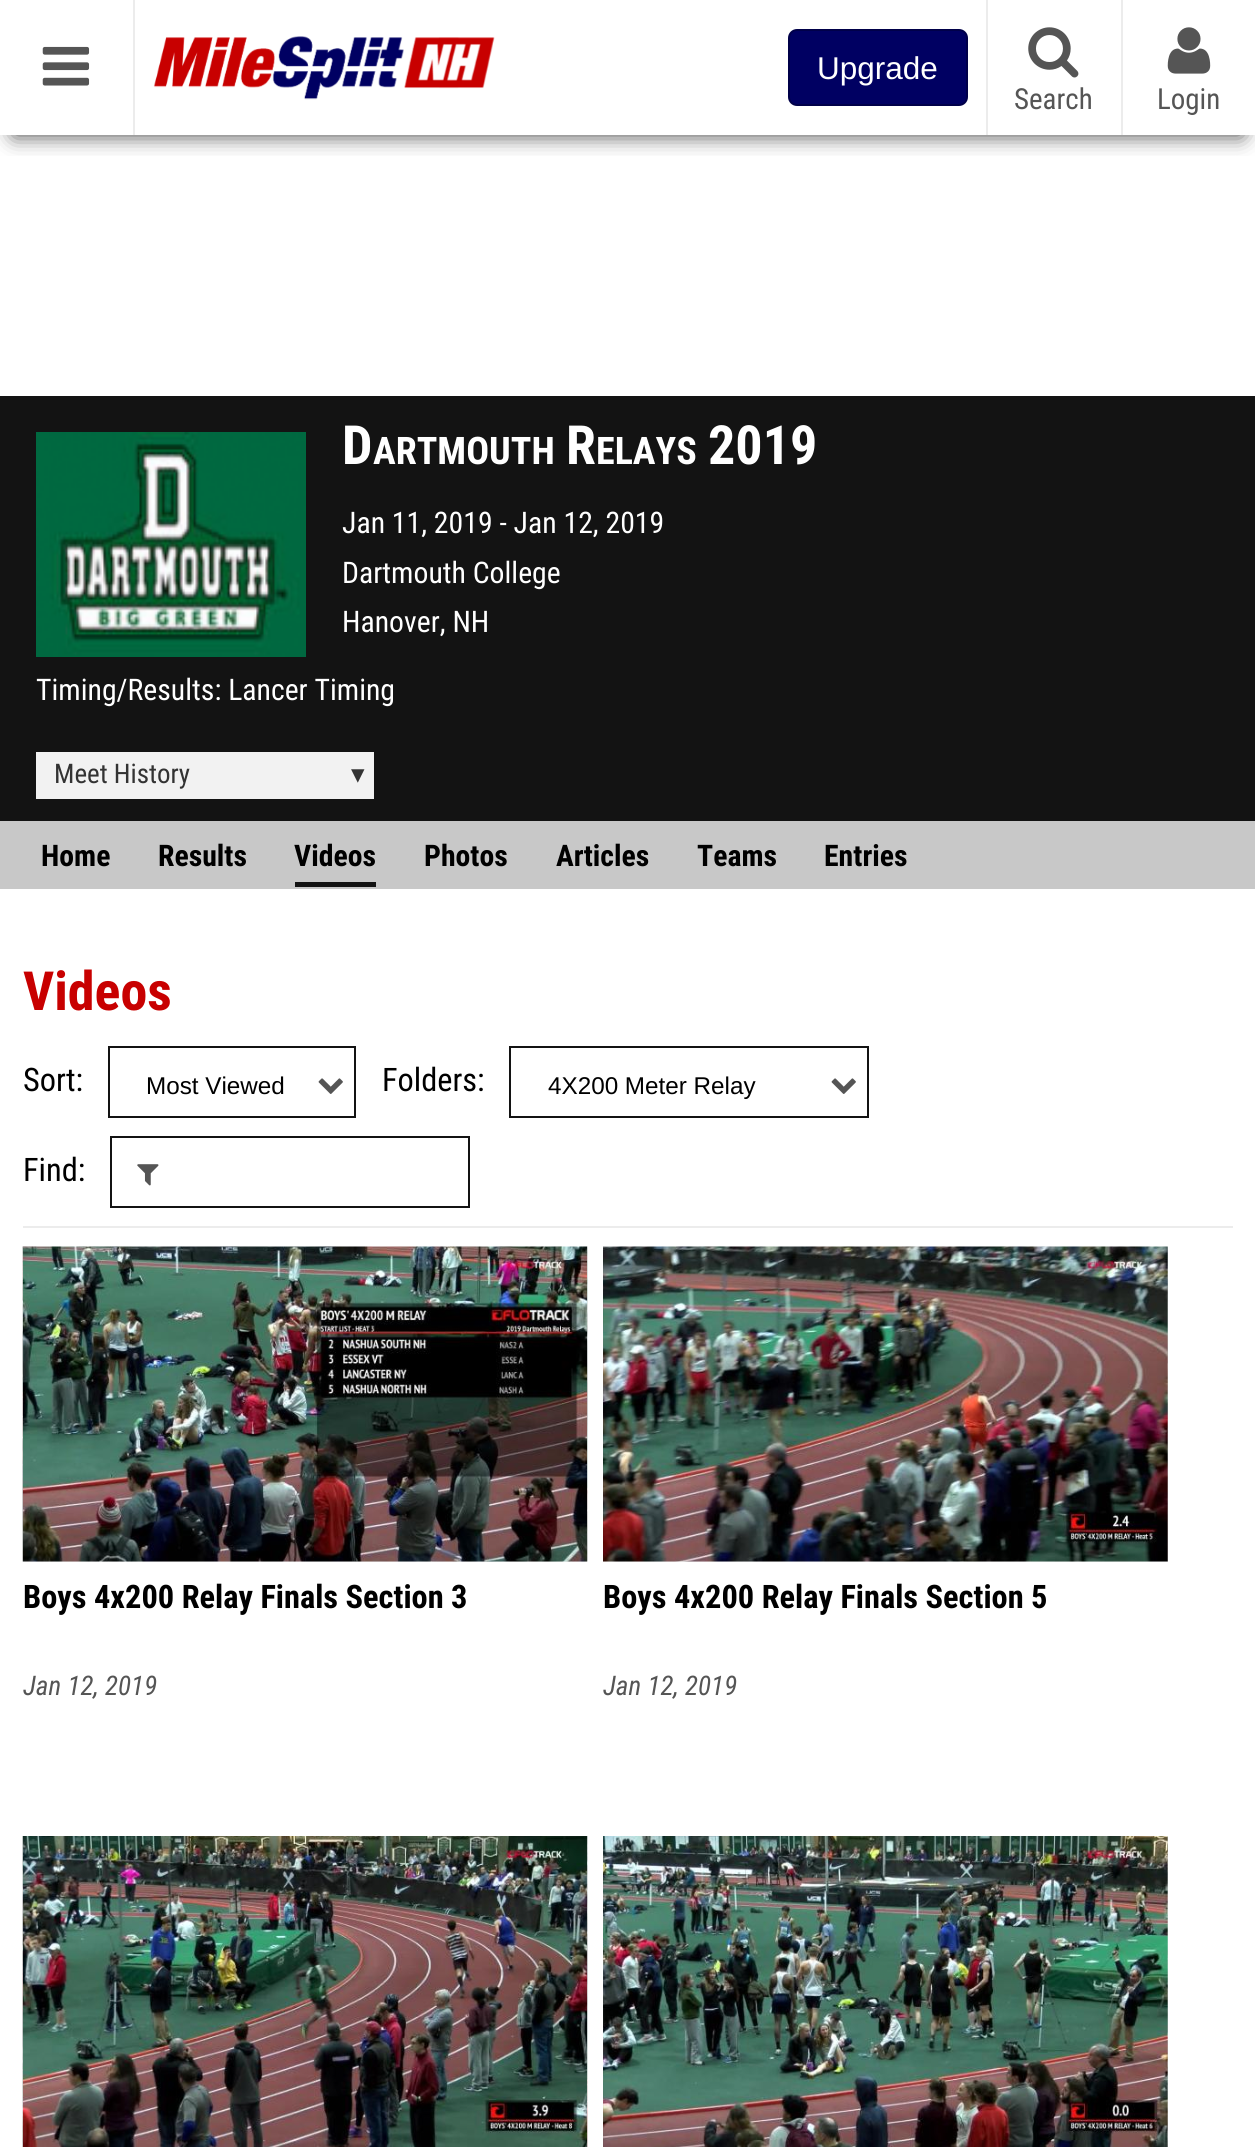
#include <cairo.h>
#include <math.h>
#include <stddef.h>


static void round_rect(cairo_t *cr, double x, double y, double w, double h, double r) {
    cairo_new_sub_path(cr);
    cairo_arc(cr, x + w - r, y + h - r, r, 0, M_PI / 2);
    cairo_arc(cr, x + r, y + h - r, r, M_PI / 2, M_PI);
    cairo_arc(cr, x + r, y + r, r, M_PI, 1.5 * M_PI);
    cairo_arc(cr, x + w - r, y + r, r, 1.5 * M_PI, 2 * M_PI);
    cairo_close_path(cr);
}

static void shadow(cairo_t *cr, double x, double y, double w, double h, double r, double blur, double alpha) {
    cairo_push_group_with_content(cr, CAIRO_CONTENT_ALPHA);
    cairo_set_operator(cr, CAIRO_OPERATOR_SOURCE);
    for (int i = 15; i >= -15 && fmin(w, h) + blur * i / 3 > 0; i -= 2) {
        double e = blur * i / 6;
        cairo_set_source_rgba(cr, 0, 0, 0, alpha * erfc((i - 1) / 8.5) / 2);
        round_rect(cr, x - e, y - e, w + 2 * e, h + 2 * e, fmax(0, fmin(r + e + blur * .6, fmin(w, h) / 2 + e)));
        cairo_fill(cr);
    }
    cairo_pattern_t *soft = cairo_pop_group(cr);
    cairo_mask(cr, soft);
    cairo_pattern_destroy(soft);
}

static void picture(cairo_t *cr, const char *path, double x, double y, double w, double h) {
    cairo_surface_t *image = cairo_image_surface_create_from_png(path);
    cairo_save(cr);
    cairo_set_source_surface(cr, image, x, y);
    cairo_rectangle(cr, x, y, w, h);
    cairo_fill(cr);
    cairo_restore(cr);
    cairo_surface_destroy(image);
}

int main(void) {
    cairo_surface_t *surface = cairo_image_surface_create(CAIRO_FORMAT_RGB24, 1255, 2147);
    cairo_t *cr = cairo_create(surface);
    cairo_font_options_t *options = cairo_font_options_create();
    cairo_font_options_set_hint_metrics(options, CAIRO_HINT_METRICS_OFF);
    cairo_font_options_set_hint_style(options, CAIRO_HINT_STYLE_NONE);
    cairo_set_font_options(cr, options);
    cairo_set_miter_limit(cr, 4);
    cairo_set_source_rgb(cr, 1, 1, 1);
    cairo_paint(cr);
    cairo_save(cr);
    cairo_rectangle(cr, 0, 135, 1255, 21);
    cairo_clip(cr);
    cairo_set_source_rgb(cr, 0, 0, 0);
    shadow(cr, 14, 27, 1228, 108, 0, 11, 0.75);
    cairo_restore(cr);
    cairo_set_source_rgb(cr, 0.922, 0.922, 0.922);
    cairo_rectangle(cr, 133, 0, 2, 135);
    cairo_fill(cr);
    picture(cr, "img1.png", 42, 46, 48, 40);
    picture(cr, "img2.png", 153, 36, 342, 64);
    cairo_set_source_rgb(cr, 0, 0, 0.384);
    round_rect(cr, 789, 30, 178, 75, 8);
    cairo_fill_preserve(cr);
    cairo_set_source_rgb(cr, 0, 0, 0.286);
    cairo_stroke(cr);
    cairo_select_font_face(cr, "Liberation Sans", CAIRO_FONT_SLANT_NORMAL, CAIRO_FONT_WEIGHT_NORMAL);
    cairo_set_font_size(cr, 31.5);
    cairo_set_source_rgb(cr, 1, 1, 1);
    cairo_move_to(cr, 817, 79);
    cairo_show_text(cr, "Upgrade");
    cairo_set_source_rgb(cr, 0.922, 0.922, 0.922);
    cairo_rectangle(cr, 986, 0, 2, 135);
    cairo_fill(cr);
    picture(cr, "img3.png", 1028, 27, 51, 51);
    cairo_select_font_face(cr, "Roboto Condensed", CAIRO_FONT_SLANT_NORMAL, CAIRO_FONT_WEIGHT_NORMAL);
    cairo_set_font_size(cr, 29);
    cairo_set_source_rgb(cr, 0.333, 0.333, 0.333);
    cairo_move_to(cr, 1014, 109);
    cairo_show_text(cr, "Search");
    cairo_set_source_rgb(cr, 0.922, 0.922, 0.922);
    cairo_rectangle(cr, 1121, 0, 2, 135);
    cairo_fill(cr);
    picture(cr, "img4.png", 1167, 27, 44, 47);
    cairo_set_source_rgb(cr, 0.333, 0.333, 0.333);
    cairo_move_to(cr, 1157, 109);
    cairo_show_text(cr, "Login");
    cairo_set_source_rgb(cr, 0.078, 0.078, 0.078);
    cairo_rectangle(cr, 0, 396, 1255, 425);
    cairo_fill(cr);
    picture(cr, "img5.png", 36, 432, 270, 225);
    cairo_select_font_face(cr, "Roboto Condensed", CAIRO_FONT_SLANT_NORMAL, CAIRO_FONT_WEIGHT_BOLD);
    cairo_set_font_size(cr, 54);
    cairo_set_source_rgb(cr, 1, 1, 1);
    cairo_move_to(cr, 342, 464);
    cairo_show_text(cr, "D");
    cairo_set_font_size(cr, 38);
    cairo_move_to(cr, 373, 464);
    cairo_show_text(cr, "ARTMOUTH");
    cairo_set_font_size(cr, 54);
    cairo_move_to(cr, 566, 464);
    cairo_show_text(cr, "R");
    cairo_set_font_size(cr, 38);
    cairo_move_to(cr, 596, 464);
    cairo_show_text(cr, "ELAYS");
    cairo_set_font_size(cr, 54);
    cairo_move_to(cr, 708, 464);
    cairo_show_text(cr, "2019");
    cairo_select_font_face(cr, "Roboto Condensed", CAIRO_FONT_SLANT_NORMAL, CAIRO_FONT_WEIGHT_NORMAL);
    cairo_set_font_size(cr, 29.75);
    cairo_move_to(cr, 342, 533);
    cairo_show_text(cr, "Jan 11, 2019 - Jan 12, 2019");
    cairo_move_to(cr, 342, 583);
    cairo_show_text(cr, "Dartmouth College");
    cairo_move_to(cr, 342, 632);
    cairo_show_text(cr, "Hanover, NH");
    cairo_move_to(cr, 36, 700);
    cairo_show_text(cr, "Timing/Results: Lancer Timing");
    cairo_set_source_rgb(cr, 0.949, 0.949, 0.949);
    cairo_rectangle(cr, 36, 752, 338, 47);
    cairo_fill(cr);
    cairo_set_font_size(cr, 27);
    cairo_set_source_rgb(cr, 0.2, 0.2, 0.2);
    cairo_move_to(cr, 54, 783);
    cairo_show_text(cr, "Meet History");
    cairo_select_font_face(cr, "DejaVu Sans", CAIRO_FONT_SLANT_NORMAL, CAIRO_FONT_WEIGHT_NORMAL);
    cairo_move_to(cr, 351, 783);
    cairo_show_text(cr, "▾");
    cairo_set_source_rgb(cr, 0.784, 0.784, 0.784);
    cairo_rectangle(cr, 0, 821, 1255, 68);
    cairo_fill(cr);
    cairo_select_font_face(cr, "Roboto Condensed", CAIRO_FONT_SLANT_NORMAL, CAIRO_FONT_WEIGHT_BOLD);
    cairo_set_font_size(cr, 29.75);
    cairo_set_source_rgb(cr, 0, 0, 0);
    cairo_move_to(cr, 41, 866);
    cairo_show_text(cr, "Home");
    cairo_move_to(cr, 158, 866);
    cairo_show_text(cr, "Results");
    cairo_set_source_rgb(cr, 0.078, 0.078, 0.078);
    cairo_rectangle(cr, 295, 882, 81, 5);
    cairo_fill(cr);
    cairo_set_source_rgb(cr, 0, 0, 0);
    cairo_move_to(cr, 294, 866);
    cairo_show_text(cr, "Videos");
    cairo_move_to(cr, 424, 866);
    cairo_show_text(cr, "Photos");
    cairo_move_to(cr, 556, 866);
    cairo_show_text(cr, "Articles");
    cairo_move_to(cr, 697, 866);
    cairo_show_text(cr, "Teams");
    cairo_move_to(cr, 824, 866);
    cairo_show_text(cr, "Entries");
    cairo_set_source_rgb(cr, 0.922, 0.922, 0.922);
    cairo_rectangle(cr, 23, 1226, 1210, 2);
    cairo_fill(cr);
    cairo_set_font_size(cr, 54);
    cairo_set_source_rgb(cr, 0.784, 0, 0);
    cairo_move_to(cr, 23, 1010);
    cairo_show_text(cr, "Videos");
    cairo_select_font_face(cr, "Roboto Condensed", CAIRO_FONT_SLANT_NORMAL, CAIRO_FONT_WEIGHT_NORMAL);
    cairo_set_font_size(cr, 32.4);
    cairo_set_source_rgb(cr, 0, 0, 0);
    cairo_move_to(cr, 23, 1091);
    cairo_show_text(cr, "Sort:");
    cairo_rectangle(cr, 109, 1047, 246, 70);
    cairo_set_source_rgb(cr, 0.078, 0.078, 0.078);
    cairo_stroke(cr);
    cairo_select_font_face(cr, "Liberation Sans", CAIRO_FONT_SLANT_NORMAL, CAIRO_FONT_WEIGHT_NORMAL);
    cairo_set_font_size(cr, 24.25);
    cairo_set_source_rgb(cr, 0, 0, 0);
    cairo_move_to(cr, 146, 1094);
    cairo_show_text(cr, "Most Viewed");
    picture(cr, "img6.png", 318, 1078, 25, 16);
    cairo_select_font_face(cr, "Roboto Condensed", CAIRO_FONT_SLANT_NORMAL, CAIRO_FONT_WEIGHT_NORMAL);
    cairo_set_font_size(cr, 32.4);
    cairo_move_to(cr, 382, 1091);
    cairo_show_text(cr, "Folders:");
    cairo_rectangle(cr, 510, 1047, 358, 70);
    cairo_set_source_rgb(cr, 0.078, 0.078, 0.078);
    cairo_stroke(cr);
    cairo_select_font_face(cr, "Liberation Sans", CAIRO_FONT_SLANT_NORMAL, CAIRO_FONT_WEIGHT_NORMAL);
    cairo_set_font_size(cr, 24.25);
    cairo_set_source_rgb(cr, 0, 0, 0);
    cairo_move_to(cr, 548, 1094);
    cairo_show_text(cr, "4X200 Meter Relay");
    picture(cr, "img6.png", 831, 1078, 25, 16);
    cairo_select_font_face(cr, "Roboto Condensed", CAIRO_FONT_SLANT_NORMAL, CAIRO_FONT_WEIGHT_NORMAL);
    cairo_set_font_size(cr, 32.4);
    cairo_move_to(cr, 23, 1181);
    cairo_show_text(cr, "Find:");
    cairo_rectangle(cr, 111, 1137, 358, 70);
    cairo_set_source_rgb(cr, 0.078, 0.078, 0.078);
    cairo_stroke(cr);
    picture(cr, "img7.png", 137, 1164, 22, 22);
    cairo_set_source_rgb(cr, 0.922, 0.922, 0.922);
    cairo_rectangle(cr, 23, 1561, 564, 1);
    cairo_fill(cr);
    picture(cr, "img8.png", 22, 1246, 566, 316);
    cairo_select_font_face(cr, "Roboto Condensed", CAIRO_FONT_SLANT_NORMAL, CAIRO_FONT_WEIGHT_BOLD);
    cairo_set_source_rgb(cr, 0, 0, 0);
    cairo_move_to(cr, 23, 1608);
    cairo_show_text(cr, "Boys 4x200 Relay Finals Section 3");
    cairo_select_font_face(cr, "Roboto Condensed", CAIRO_FONT_SLANT_ITALIC, CAIRO_FONT_WEIGHT_NORMAL);
    cairo_set_font_size(cr, 27);
    cairo_set_source_rgb(cr, 0.333, 0.333, 0.333);
    cairo_move_to(cr, 23, 1695);
    cairo_show_text(cr, "Jan 12, 2019");
    cairo_set_source_rgb(cr, 0.922, 0.922, 0.922);
    cairo_rectangle(cr, 603, 1247, 565, 315);
    cairo_fill(cr);
    picture(cr, "img9.png", 603, 1246, 565, 316);
    cairo_select_font_face(cr, "Roboto Condensed", CAIRO_FONT_SLANT_NORMAL, CAIRO_FONT_WEIGHT_BOLD);
    cairo_set_font_size(cr, 32.4);
    cairo_set_source_rgb(cr, 0, 0, 0);
    cairo_move_to(cr, 603, 1608);
    cairo_show_text(cr, "Boys 4x200 Relay Finals Section 5");
    cairo_select_font_face(cr, "Roboto Condensed", CAIRO_FONT_SLANT_ITALIC, CAIRO_FONT_WEIGHT_NORMAL);
    cairo_set_font_size(cr, 27);
    cairo_set_source_rgb(cr, 0.333, 0.333, 0.333);
    cairo_move_to(cr, 603, 1695);
    cairo_show_text(cr, "Jan 12, 2019");
    picture(cr, "img10.png", 22, 1836, 566, 311);
    picture(cr, "img11.png", 603, 1836, 565, 311);
    cairo_surface_write_to_png(surface, "page.png");
    cairo_font_options_destroy(options);
    cairo_destroy(cr);
    cairo_surface_destroy(surface);
    return 0;
}
